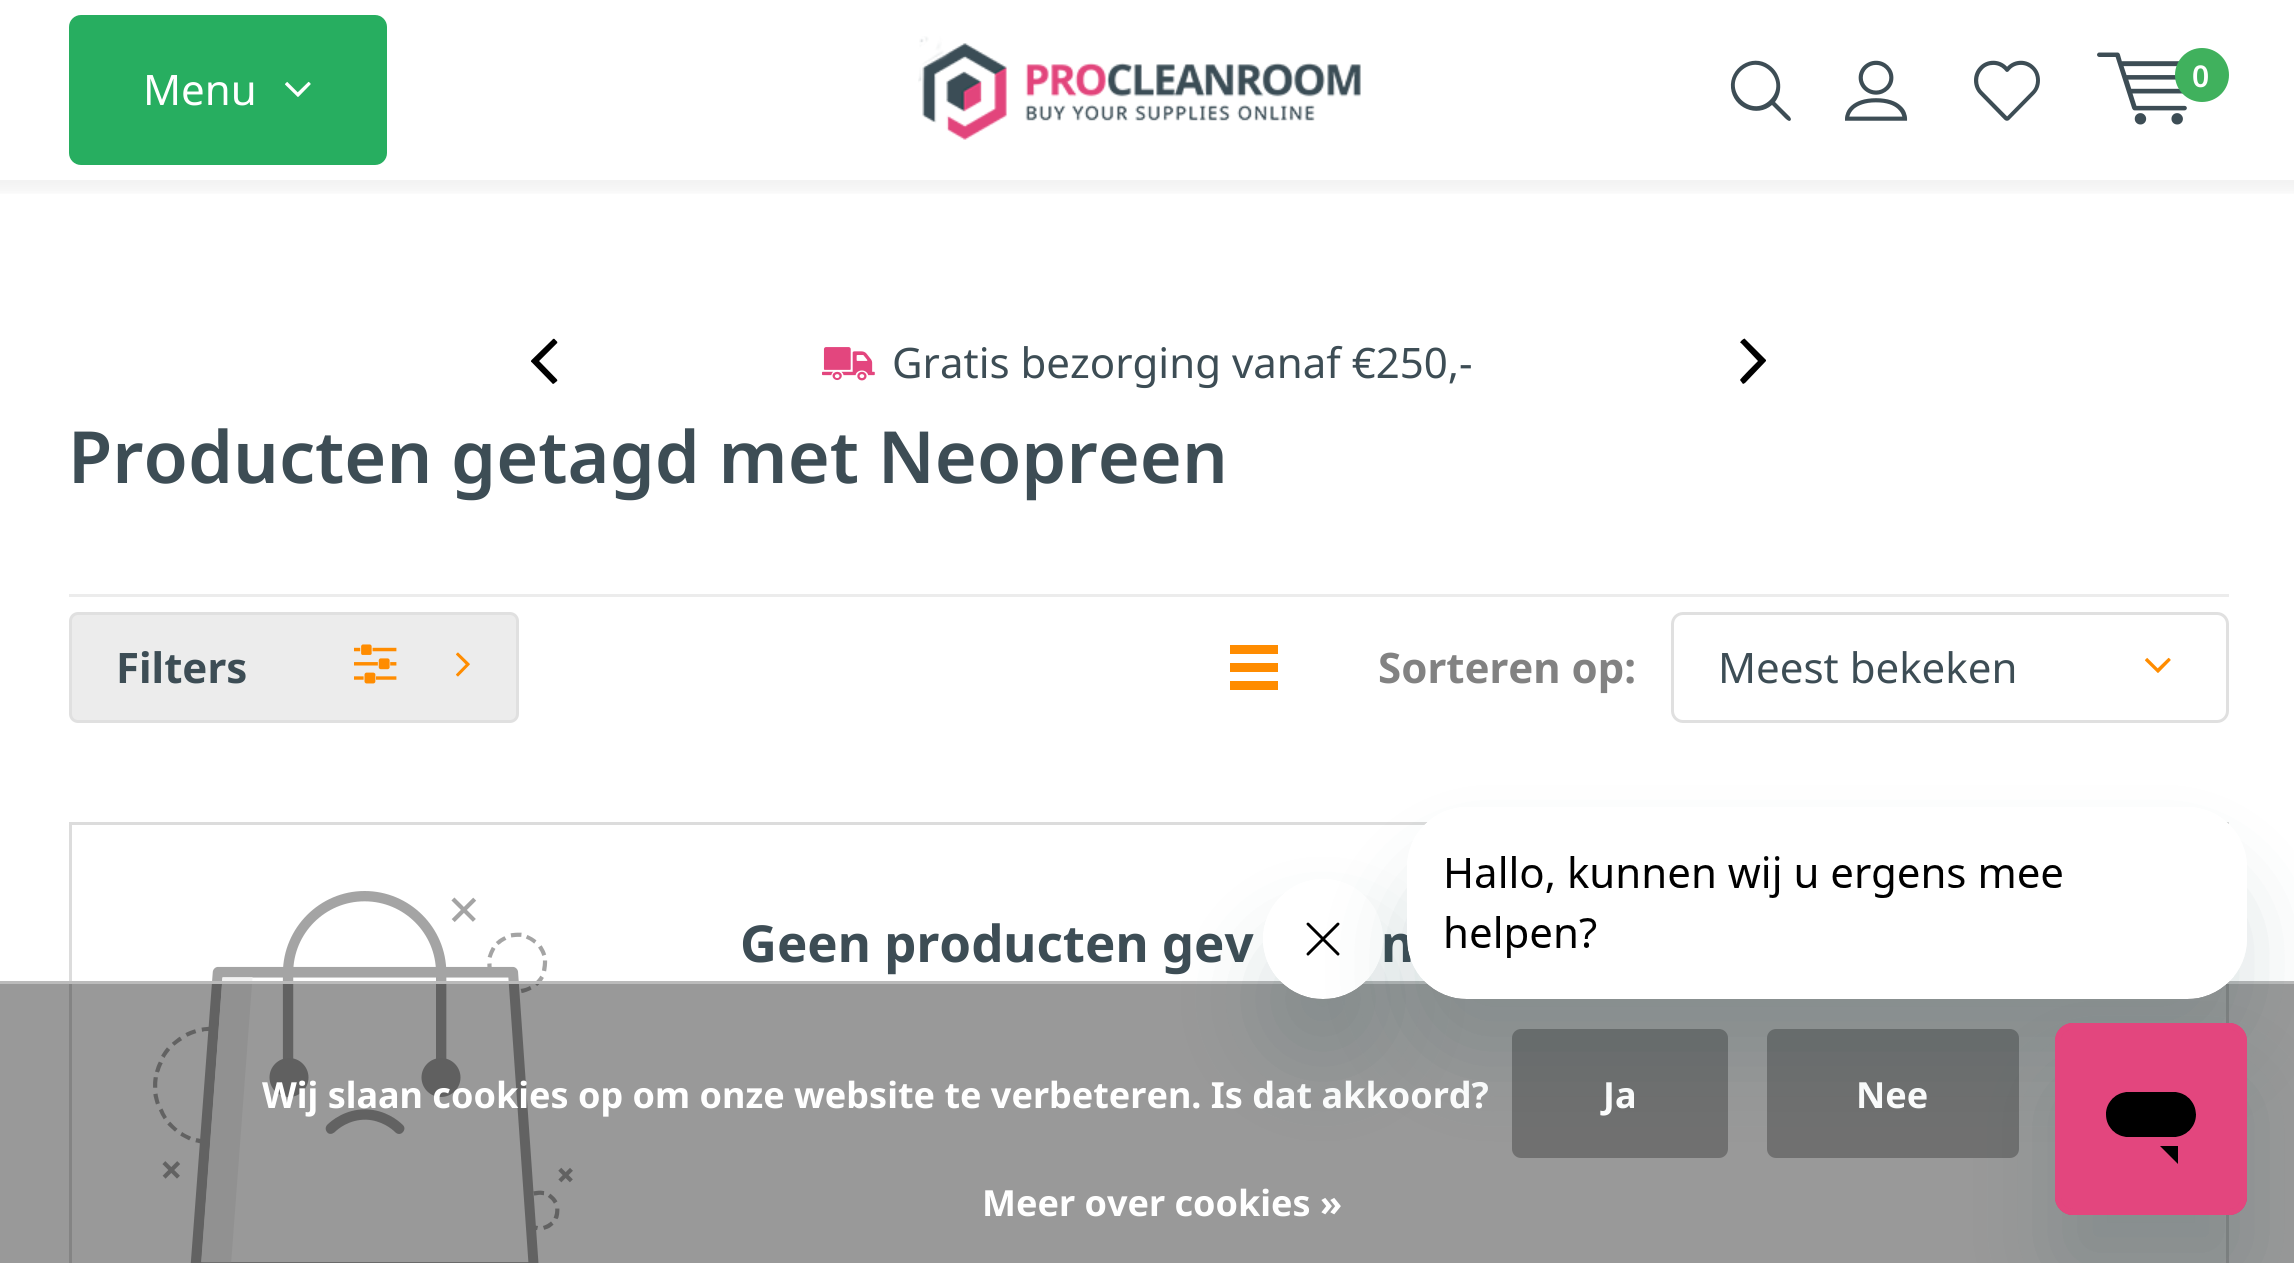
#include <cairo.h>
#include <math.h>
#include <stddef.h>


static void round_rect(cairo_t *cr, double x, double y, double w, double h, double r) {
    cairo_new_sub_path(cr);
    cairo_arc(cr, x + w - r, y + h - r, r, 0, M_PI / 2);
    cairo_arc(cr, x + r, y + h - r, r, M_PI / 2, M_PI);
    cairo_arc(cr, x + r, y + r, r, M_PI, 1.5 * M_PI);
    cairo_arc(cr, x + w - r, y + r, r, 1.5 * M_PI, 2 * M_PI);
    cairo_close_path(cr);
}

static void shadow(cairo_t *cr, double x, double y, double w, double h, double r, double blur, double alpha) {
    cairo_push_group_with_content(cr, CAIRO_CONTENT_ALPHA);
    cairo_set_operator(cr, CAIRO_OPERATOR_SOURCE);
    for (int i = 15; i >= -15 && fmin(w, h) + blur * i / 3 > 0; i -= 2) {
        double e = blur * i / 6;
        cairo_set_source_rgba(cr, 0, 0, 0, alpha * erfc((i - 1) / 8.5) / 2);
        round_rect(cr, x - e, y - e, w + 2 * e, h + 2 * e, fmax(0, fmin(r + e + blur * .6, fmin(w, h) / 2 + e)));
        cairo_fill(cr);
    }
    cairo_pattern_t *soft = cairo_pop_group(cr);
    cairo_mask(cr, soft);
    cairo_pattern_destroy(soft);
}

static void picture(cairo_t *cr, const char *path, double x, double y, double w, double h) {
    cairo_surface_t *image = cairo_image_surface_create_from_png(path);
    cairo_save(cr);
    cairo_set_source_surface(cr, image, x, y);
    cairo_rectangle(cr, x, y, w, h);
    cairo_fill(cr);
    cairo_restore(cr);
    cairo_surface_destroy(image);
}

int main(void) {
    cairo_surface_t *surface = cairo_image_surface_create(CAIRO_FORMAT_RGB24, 2294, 1263);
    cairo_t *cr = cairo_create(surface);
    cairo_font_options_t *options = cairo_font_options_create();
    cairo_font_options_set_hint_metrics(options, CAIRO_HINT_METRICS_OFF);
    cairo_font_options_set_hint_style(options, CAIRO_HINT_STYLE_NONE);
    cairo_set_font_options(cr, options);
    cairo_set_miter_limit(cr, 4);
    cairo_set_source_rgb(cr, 1, 1, 1);
    cairo_paint(cr);
    cairo_save(cr);
    cairo_rectangle(cr, 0, 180, 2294, 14);
    cairo_clip(cr);
    cairo_set_source_rgb(cr, 0, 0, 0);
    shadow(cr, -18, 12, 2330, 180, 0, 6, 0.05);
    cairo_restore(cr);
    picture(cr, "img1.png", 918, 36, 443, 104);
    cairo_set_source_rgb(cr, 0.153, 0.682, 0.376);
    round_rect(cr, 69, 15, 318, 150, 12);
    cairo_fill(cr);
    cairo_select_font_face(cr, "Noto Sans", CAIRO_FONT_SLANT_NORMAL, CAIRO_FONT_WEIGHT_NORMAL);
    cairo_set_font_size(cr, 42);
    cairo_set_source_rgb(cr, 1, 1, 1);
    cairo_move_to(cr, 143, 105);
    cairo_show_text(cr, "Menu");
    picture(cr, "img2.png", 285, 81, 26, 16);
    cairo_set_source_rgb(cr, 0.239, 0.302, 0.333);
    cairo_new_path(cr);
    cairo_move_to(cr, 1790, 117);
    cairo_line_to(cr, 1775, 102);
    cairo_curve_to(cr, 1784, 90, 1781, 73, 1769, 65);
    cairo_curve_to(cr, 1752, 53, 1729, 68, 1731, 88);
    cairo_curve_to(cr, 1733, 108, 1757, 118, 1772, 105);
    cairo_line_to(cr, 1782, 115);
    cairo_curve_to(cr, 1785, 118, 1790, 124, 1791, 119);
    cairo_close_path(cr);
    cairo_move_to(cr, 1770, 100);
    cairo_curve_to(cr, 1751, 119, 1722, 90, 1741, 71);
    cairo_curve_to(cr, 1761, 52, 1789, 81, 1770, 100);
    cairo_close_path(cr);
    cairo_fill(cr);
    picture(cr, "img3.png", 1845, 60, 63, 61);
    picture(cr, "img4.png", 1974, 60, 66, 61);
    picture(cr, "img5.png", 2097, 52, 90, 73);
    cairo_set_source_rgb(cr, 0.251, 0.694, 0.365);
    cairo_arc(cr, 2202, 75, 27, 0, 2 * M_PI);
    cairo_fill(cr);
    cairo_select_font_face(cr, "Noto Sans SemiBold", CAIRO_FONT_SLANT_NORMAL, CAIRO_FONT_WEIGHT_NORMAL);
    cairo_set_font_size(cr, 30);
    cairo_set_source_rgb(cr, 1, 1, 1);
    cairo_move_to(cr, 2192, 87);
    cairo_show_text(cr, "0");
    picture(cr, "img6.png", 531, 338, 27, 46);
    cairo_set_source_rgb(cr, 0, 0, 0);
    cairo_new_path(cr);
    cairo_move_to(cr, 1766, 360);
    cairo_line_to(cr, 1745, 339);
    cairo_curve_to(cr, 1745, 337, 1738, 343, 1741, 343);
    cairo_line_to(cr, 1758, 361);
    cairo_curve_to(cr, 1756, 363, 1740, 379, 1740, 380);
    cairo_line_to(cr, 1743, 384);
    cairo_line_to(cr, 1745, 383);
    cairo_line_to(cr, 1766, 361);
    cairo_curve_to(cr, 1766, 361, 1766, 360, 1766, 360);
    cairo_close_path(cr);
    cairo_fill(cr);
    picture(cr, "img7.png", 822, 347, 53, 34);
    cairo_select_font_face(cr, "Noto Sans", CAIRO_FONT_SLANT_NORMAL, CAIRO_FONT_WEIGHT_NORMAL);
    cairo_set_font_size(cr, 42);
    cairo_set_source_rgb(cr, 0.239, 0.302, 0.333);
    cairo_move_to(cr, 892, 378);
    cairo_show_text(cr, "Gratis bezorging vanaf €250,-");
    cairo_select_font_face(cr, "Noto Sans SemiBold", CAIRO_FONT_SLANT_NORMAL, CAIRO_FONT_WEIGHT_NORMAL);
    cairo_set_font_size(cr, 72);
    cairo_move_to(cr, 68, 483);
    cairo_show_text(cr, "Producten getagd met Neopreen");
    cairo_set_source_rgb(cr, 0.922, 0.922, 0.922);
    cairo_rectangle(cr, 69, 594, 2160, 3);
    cairo_fill(cr);
    round_rect(cr, 70.5, 613.5, 447, 108, 7.5);
    cairo_fill_preserve(cr);
    cairo_set_source_rgb(cr, 0.878, 0.878, 0.878);
    cairo_set_line_width(cr, 3);
    cairo_stroke(cr);
    cairo_select_font_face(cr, "Noto Sans", CAIRO_FONT_SLANT_NORMAL, CAIRO_FONT_WEIGHT_BOLD);
    cairo_set_font_size(cr, 42);
    cairo_set_source_rgb(cr, 0.239, 0.302, 0.333);
    cairo_move_to(cr, 116, 683);
    cairo_show_text(cr, "Filters");
    picture(cr, "img8.png", 354, 644, 43, 40);
    picture(cr, "img9.png", 456, 652, 14, 25);
    cairo_set_source_rgb(cr, 1, 0.549, 0);
    cairo_new_path(cr);
    cairo_move_to(cr, 1230, 645);
    cairo_line_to(cr, 1278, 645);
    cairo_line_to(cr, 1278, 654);
    cairo_line_to(cr, 1230, 654);
    cairo_close_path(cr);
    cairo_move_to(cr, 1230, 663);
    cairo_line_to(cr, 1278, 663);
    cairo_line_to(cr, 1278, 672);
    cairo_line_to(cr, 1230, 672);
    cairo_close_path(cr);
    cairo_move_to(cr, 1230, 681);
    cairo_line_to(cr, 1278, 681);
    cairo_line_to(cr, 1278, 690);
    cairo_line_to(cr, 1230, 690);
    cairo_close_path(cr);
    cairo_fill(cr);
    cairo_set_source_rgb(cr, 0.51, 0.51, 0.51);
    cairo_move_to(cr, 1378, 683);
    cairo_show_text(cr, "Sorteren op:");
    picture(cr, "img10.png", 2145, 657, 26, 16);
    round_rect(cr, 1672.5, 613.5, 555, 108, 10.5);
    cairo_set_source_rgb(cr, 0.878, 0.878, 0.878);
    cairo_stroke(cr);
    cairo_select_font_face(cr, "Noto Sans", CAIRO_FONT_SLANT_NORMAL, CAIRO_FONT_WEIGHT_NORMAL);
    cairo_set_source_rgb(cr, 0.239, 0.302, 0.333);
    cairo_move_to(cr, 1718, 683);
    cairo_show_text(cr, "Meest bekeken");
    cairo_rectangle(cr, 70.5, 823.5, 2157, 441);
    cairo_set_source_rgb(cr, 0.863, 0.863, 0.863);
    cairo_stroke(cr);
    picture(cr, "img11.png", 153, 891, 420, 372);
    cairo_select_font_face(cr, "Noto Sans", CAIRO_FONT_SLANT_NORMAL, CAIRO_FONT_WEIGHT_BOLD);
    cairo_set_font_size(cr, 51);
    cairo_set_source_rgb(cr, 0.239, 0.302, 0.333);
    cairo_move_to(cr, 740, 962);
    cairo_show_text(cr, "Geen producten gev");
    cairo_move_to(cr, 1381, 962);
    cairo_show_text(cr, "n");
    cairo_set_source_rgba(cr, 0, 0, 0, 0.4);
    cairo_rectangle(cr, 0, 984, 2294, 279);
    cairo_fill(cr);
    cairo_set_source_rgb(cr, 0.733, 0.733, 0.733);
    cairo_rectangle(cr, 0, 981, 2294, 3);
    cairo_fill(cr);
    cairo_set_font_size(cr, 36);
    cairo_set_source_rgb(cr, 1, 1, 1);
    cairo_move_to(cr, 262, 1108);
    cairo_show_text(cr, "Wij slaan cookies op om onze website te verbeteren. Is dat akkoord?");
    cairo_set_source_rgb(cr, 0.439, 0.439, 0.439);
    round_rect(cr, 1512, 1029, 216, 129, 9);
    cairo_fill(cr);
    cairo_set_source_rgb(cr, 1, 1, 1);
    cairo_move_to(cr, 1603, 1108);
    cairo_show_text(cr, "Ja");
    cairo_set_source_rgb(cr, 0.439, 0.439, 0.439);
    round_rect(cr, 1767, 1029, 252, 129, 9);
    cairo_fill(cr);
    cairo_set_source_rgb(cr, 1, 1, 1);
    cairo_move_to(cr, 1856, 1108);
    cairo_show_text(cr, "Nee");
    cairo_move_to(cr, 982, 1216);
    cairo_show_text(cr, "Meer over cookies »");
    cairo_save(cr);
    cairo_set_fill_rule(cr, CAIRO_FILL_RULE_EVEN_ODD);
    cairo_new_path(cr);
    cairo_move_to(cr, 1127, 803);
    cairo_line_to(cr, 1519, 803);
    cairo_line_to(cr, 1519, 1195);
    cairo_line_to(cr, 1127, 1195);
    cairo_close_path(cr);
    cairo_move_to(cr, 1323, 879);
    cairo_curve_to(cr, 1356, 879, 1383, 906, 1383, 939);
    cairo_curve_to(cr, 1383, 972, 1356, 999, 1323, 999);
    cairo_curve_to(cr, 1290, 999, 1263, 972, 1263, 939);
    cairo_curve_to(cr, 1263, 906, 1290, 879, 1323, 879);
    cairo_close_path(cr);
    cairo_clip(cr);
    cairo_set_source_rgb(cr, 0.09, 0.286, 0.302);
    shadow(cr, 1263, 939, 120, 120, 60, 45, 0.15);
    cairo_restore(cr);
    picture(cr, "img13.png", 1263, 922, 116, 77);
    cairo_save(cr);
    cairo_set_fill_rule(cr, CAIRO_FILL_RULE_EVEN_ODD);
    cairo_new_path(cr);
    cairo_move_to(cr, 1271, 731);
    cairo_line_to(cr, 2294, 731);
    cairo_line_to(cr, 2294, 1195);
    cairo_line_to(cr, 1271, 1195);
    cairo_close_path(cr);
    cairo_move_to(cr, 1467, 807);
    cairo_line_to(cr, 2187, 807);
    cairo_curve_to(cr, 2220, 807, 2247, 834, 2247, 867);
    cairo_line_to(cr, 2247, 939);
    cairo_curve_to(cr, 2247, 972, 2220, 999, 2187, 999);
    cairo_line_to(cr, 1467, 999);
    cairo_curve_to(cr, 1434, 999, 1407, 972, 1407, 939);
    cairo_line_to(cr, 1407, 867);
    cairo_curve_to(cr, 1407, 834, 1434, 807, 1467, 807);
    cairo_close_path(cr);
    cairo_clip(cr);
    cairo_set_source_rgb(cr, 0.09, 0.286, 0.302);
    shadow(cr, 1407, 867, 840, 192, 60, 45, 0.15);
    cairo_restore(cr);
    picture(cr, "img12.png", 1407, 822, 827, 177);
    cairo_set_source_rgb(cr, 0.09, 0.286, 0.302);
    shadow(cr, 2055, 1083, 192, 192, 18, 45, 0.15);
    picture(cr, "img14.png", 2055, 1023, 192, 192);
    cairo_surface_write_to_png(surface, "page.png");
    cairo_font_options_destroy(options);
    cairo_destroy(cr);
    cairo_surface_destroy(surface);
    return 0;
}
